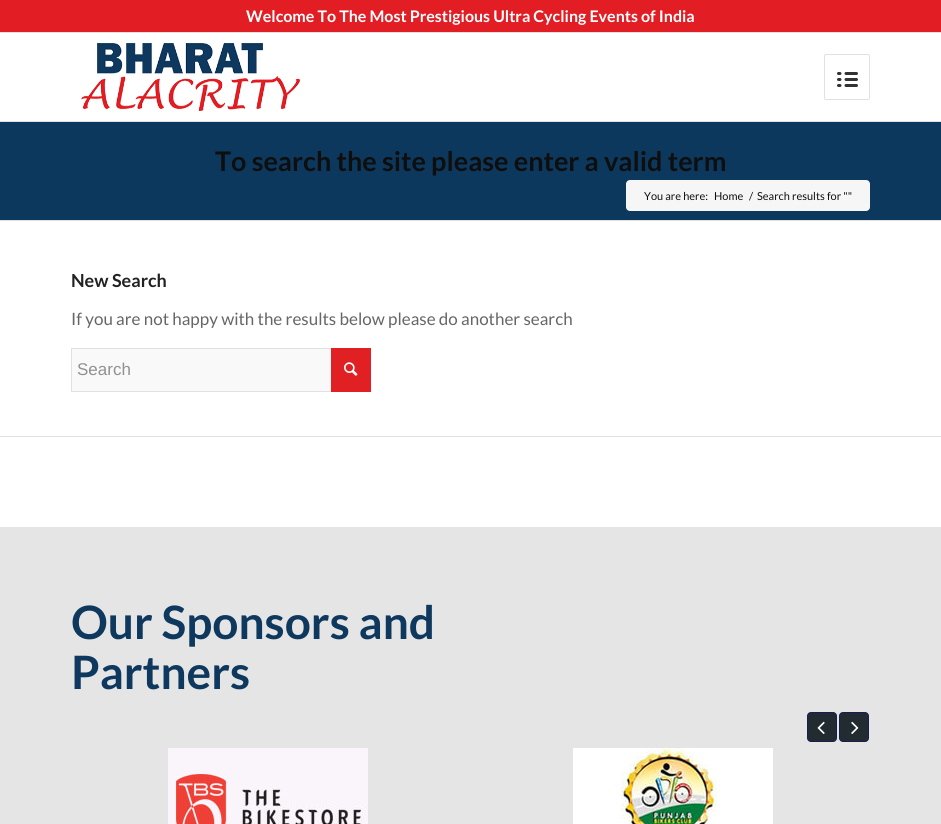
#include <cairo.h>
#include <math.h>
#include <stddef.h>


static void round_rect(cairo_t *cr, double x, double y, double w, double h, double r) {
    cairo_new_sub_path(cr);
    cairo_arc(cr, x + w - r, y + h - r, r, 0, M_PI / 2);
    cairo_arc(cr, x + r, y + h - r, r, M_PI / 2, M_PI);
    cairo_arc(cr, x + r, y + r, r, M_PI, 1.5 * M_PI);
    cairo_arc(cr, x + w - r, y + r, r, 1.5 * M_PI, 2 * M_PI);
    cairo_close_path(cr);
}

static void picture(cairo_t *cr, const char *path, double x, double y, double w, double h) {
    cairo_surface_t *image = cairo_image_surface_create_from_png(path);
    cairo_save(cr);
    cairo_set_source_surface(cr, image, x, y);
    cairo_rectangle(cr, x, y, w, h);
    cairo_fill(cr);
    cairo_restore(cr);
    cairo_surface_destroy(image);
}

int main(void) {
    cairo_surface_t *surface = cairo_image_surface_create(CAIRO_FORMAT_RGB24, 941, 824);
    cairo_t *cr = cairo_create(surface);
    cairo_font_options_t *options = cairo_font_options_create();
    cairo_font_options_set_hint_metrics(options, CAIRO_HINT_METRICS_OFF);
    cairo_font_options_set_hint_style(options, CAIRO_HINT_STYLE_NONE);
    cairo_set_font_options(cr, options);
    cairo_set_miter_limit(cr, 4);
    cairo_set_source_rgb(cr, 1, 1, 1);
    cairo_paint(cr);
    cairo_set_source_rgb(cr, 0.886, 0.118, 0.141);
    cairo_rectangle(cr, 0, 0, 941, 32);
    cairo_fill(cr);
    cairo_set_source_rgb(cr, 0.882, 0.882, 0.882);
    cairo_rectangle(cr, 0, 32, 941, 1);
    cairo_fill(cr);
    cairo_select_font_face(cr, "Lato", CAIRO_FONT_SLANT_NORMAL, CAIRO_FONT_WEIGHT_BOLD);
    cairo_set_font_size(cr, 16);
    cairo_set_source_rgb(cr, 1, 1, 1);
    cairo_move_to(cr, 246, 22);
    cairo_show_text(cr, "Welcome To The Most Prestigious Ultra Cycling Events of India");
    cairo_set_source_rgb(cr, 0.882, 0.882, 0.882);
    cairo_rectangle(cr, 0, 121, 941, 1);
    cairo_fill(cr);
    picture(cr, "img1.png", 81, 43, 219, 68);
    round_rect(cr, 824.5, 54.5, 45, 45, 1.5);
    cairo_set_line_width(cr, 1);
    cairo_stroke(cr);
    picture(cr, "img2.png", 837, 72, 21, 15);
    cairo_set_source_rgb(cr, 0.051, 0.22, 0.369);
    cairo_rectangle(cr, 0, 122, 941, 98);
    cairo_fill(cr);
    cairo_set_font_size(cr, 27);
    cairo_set_source_rgb(cr, 0.055, 0.055, 0.055);
    cairo_move_to(cr, 215, 171);
    cairo_show_text(cr, "To search the site please enter a valid term");
    cairo_set_source_rgb(cr, 0.961, 0.961, 0.961);
    round_rect(cr, 626, 180, 244, 31, 4);
    cairo_fill(cr);
    cairo_select_font_face(cr, "Lato", CAIRO_FONT_SLANT_NORMAL, CAIRO_FONT_WEIGHT_NORMAL);
    cairo_set_font_size(cr, 11);
    cairo_set_source_rgb(cr, 0.055, 0.055, 0.055);
    cairo_move_to(cr, 644, 200);
    cairo_show_text(cr, "You are here:");
    cairo_move_to(cr, 714, 200);
    cairo_show_text(cr, "Home");
    cairo_move_to(cr, 749, 200);
    cairo_show_text(cr, "/");
    cairo_move_to(cr, 757, 200);
    cairo_show_text(cr, "Search results for \"\"");
    cairo_set_source_rgb(cr, 0.882, 0.882, 0.882);
    cairo_rectangle(cr, 0, 220, 941, 1);
    cairo_fill(cr);
    cairo_select_font_face(cr, "Lato", CAIRO_FONT_SLANT_NORMAL, CAIRO_FONT_WEIGHT_BOLD);
    cairo_set_font_size(cr, 18);
    cairo_set_source_rgb(cr, 0.133, 0.133, 0.133);
    cairo_move_to(cr, 71, 287);
    cairo_show_text(cr, "New Search");
    cairo_select_font_face(cr, "Lato", CAIRO_FONT_SLANT_NORMAL, CAIRO_FONT_WEIGHT_NORMAL);
    cairo_set_font_size(cr, 17);
    cairo_set_source_rgb(cr, 0.4, 0.4, 0.4);
    cairo_move_to(cr, 71, 325);
    cairo_show_text(cr, "If you are not happy with the results below please do another search");
    cairo_set_source_rgb(cr, 0.973, 0.973, 0.973);
    cairo_rectangle(cr, 72, 349, 259, 42);
    cairo_fill(cr);
    cairo_rectangle(cr, 71.5, 348.5, 299, 43);
    cairo_set_source_rgb(cr, 0.882, 0.882, 0.882);
    cairo_stroke(cr);
    cairo_select_font_face(cr, "Liberation Sans", CAIRO_FONT_SLANT_NORMAL, CAIRO_FONT_WEIGHT_NORMAL);
    cairo_set_source_rgb(cr, 0.569, 0.569, 0.569);
    cairo_move_to(cr, 77, 375);
    cairo_show_text(cr, "Search");
    cairo_set_source_rgb(cr, 0.882, 0.125, 0.137);
    cairo_rectangle(cr, 331, 348, 40, 44);
    cairo_fill(cr);
    picture(cr, "img3.png", 344, 362, 14, 14);
    cairo_set_source_rgb(cr, 0.882, 0.882, 0.882);
    cairo_rectangle(cr, 0, 436, 941, 1);
    cairo_fill(cr);
    cairo_set_source_rgb(cr, 0.898, 0.898, 0.898);
    cairo_rectangle(cr, 0, 527, 941, 297);
    cairo_fill(cr);
    cairo_select_font_face(cr, "Lato", CAIRO_FONT_SLANT_NORMAL, CAIRO_FONT_WEIGHT_BOLD);
    cairo_set_font_size(cr, 46);
    cairo_set_source_rgb(cr, 0.055, 0.22, 0.365);
    cairo_move_to(cr, 71, 639);
    cairo_show_text(cr, "Our Sponsors and");
    cairo_move_to(cr, 71, 689);
    cairo_show_text(cr, "Partners");
    cairo_set_source_rgb(cr, 0.133, 0.169, 0.188);
    round_rect(cr, 807.5, 712.5, 29, 29, 3.5);
    cairo_fill_preserve(cr);
    cairo_set_source_rgb(cr, 0.086, 0.118, 0.329);
    cairo_stroke(cr);
    picture(cr, "img4.png", 817, 721, 8, 13);
    cairo_set_source_rgb(cr, 0.133, 0.169, 0.188);
    round_rect(cr, 839.5, 712.5, 29, 29, 3.5);
    cairo_fill_preserve(cr);
    cairo_set_source_rgb(cr, 0.086, 0.118, 0.329);
    cairo_stroke(cr);
    picture(cr, "img5.png", 851, 721, 8, 13);
    picture(cr, "img6.png", 168, 748, 200, 76);
    picture(cr, "img7.png", 573, 748, 200, 76);
    cairo_surface_write_to_png(surface, "page.png");
    cairo_font_options_destroy(options);
    cairo_destroy(cr);
    cairo_surface_destroy(surface);
    return 0;
}
